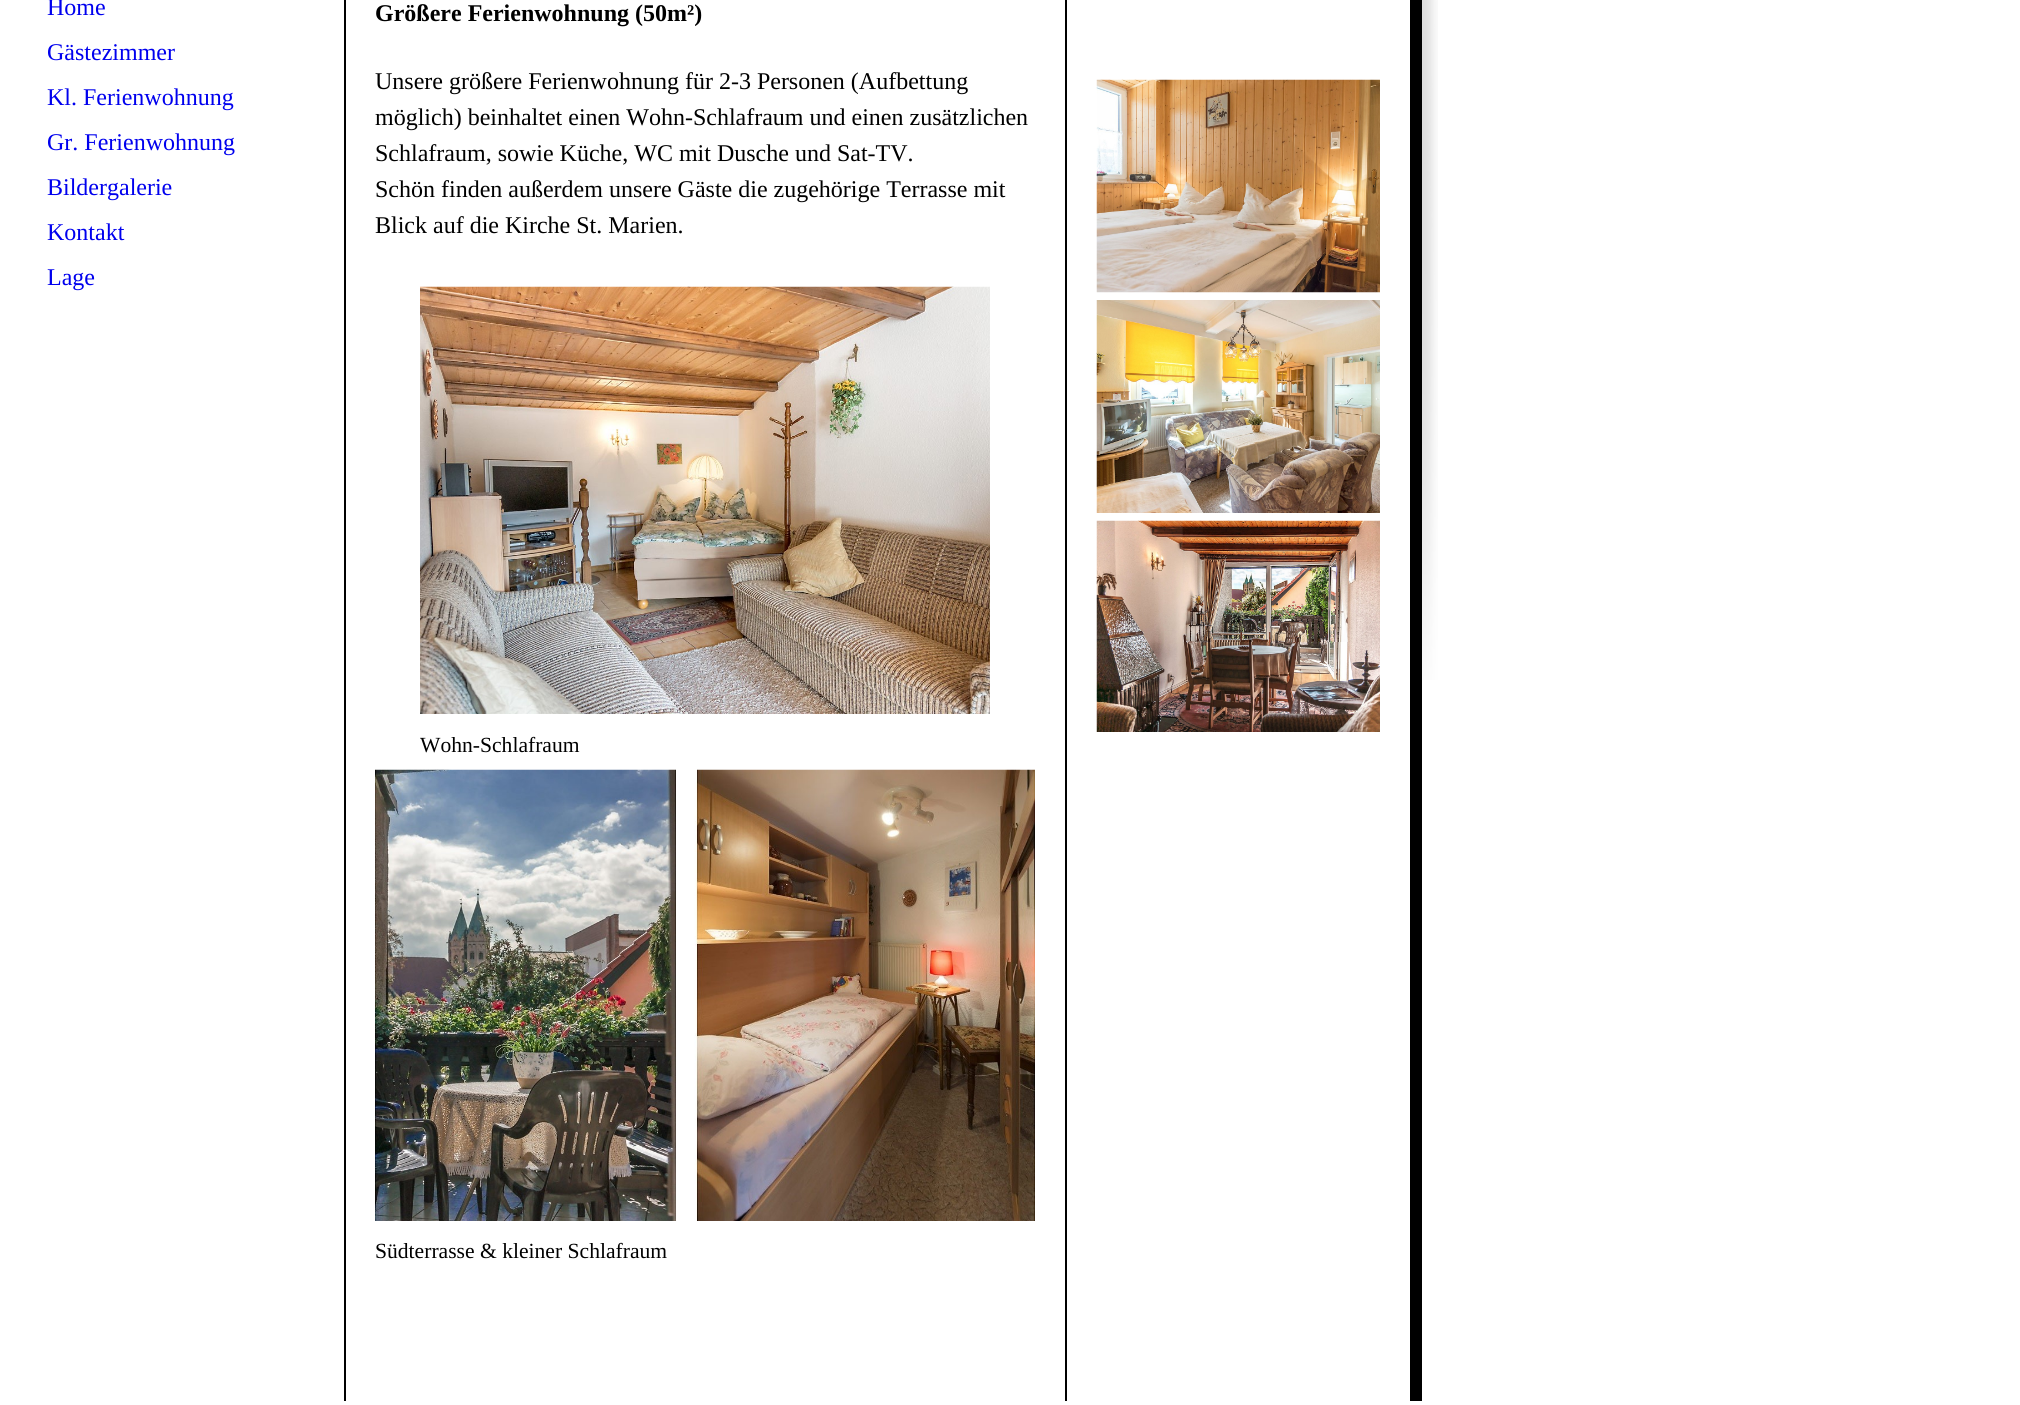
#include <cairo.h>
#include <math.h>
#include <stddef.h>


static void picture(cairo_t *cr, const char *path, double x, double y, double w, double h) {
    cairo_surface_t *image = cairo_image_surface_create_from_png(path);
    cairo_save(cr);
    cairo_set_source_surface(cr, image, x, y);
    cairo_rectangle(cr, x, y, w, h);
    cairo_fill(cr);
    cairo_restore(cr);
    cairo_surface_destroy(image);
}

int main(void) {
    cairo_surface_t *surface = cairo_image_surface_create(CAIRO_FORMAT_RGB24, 2020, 1405);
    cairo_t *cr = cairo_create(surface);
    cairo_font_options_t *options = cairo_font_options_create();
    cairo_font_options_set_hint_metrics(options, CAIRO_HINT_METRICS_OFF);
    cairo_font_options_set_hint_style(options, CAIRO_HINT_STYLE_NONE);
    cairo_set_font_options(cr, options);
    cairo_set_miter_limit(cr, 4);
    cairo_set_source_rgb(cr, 1, 1, 1);
    cairo_paint(cr);
    cairo_set_source_rgb(cr, 0, 0, 0);
    cairo_rectangle(cr, 1410, 0, 12, 1401);
    cairo_fill(cr);
    cairo_rectangle(cr, 344, 0, 2, 1401);
    cairo_fill(cr);
    cairo_select_font_face(cr, "Liberation Serif", CAIRO_FONT_SLANT_NORMAL, CAIRO_FONT_WEIGHT_NORMAL);
    cairo_set_font_size(cr, 24);
    cairo_set_source_rgb(cr, 0, 0, 0.933);
    cairo_move_to(cr, 47, 15);
    cairo_show_text(cr, "Home");
    cairo_move_to(cr, 47, 60);
    cairo_show_text(cr, "Gästezimmer");
    cairo_move_to(cr, 47, 105);
    cairo_show_text(cr, "Kl. Ferienwohnung");
    cairo_move_to(cr, 47, 150);
    cairo_show_text(cr, "Gr. Ferienwohnung");
    cairo_move_to(cr, 47, 195);
    cairo_show_text(cr, "Bildergalerie");
    cairo_move_to(cr, 47, 240);
    cairo_show_text(cr, "Kontakt");
    cairo_move_to(cr, 47, 285);
    cairo_show_text(cr, "Lage");
    cairo_select_font_face(cr, "Liberation Serif", CAIRO_FONT_SLANT_NORMAL, CAIRO_FONT_WEIGHT_BOLD);
    cairo_set_source_rgb(cr, 0, 0, 0);
    cairo_move_to(cr, 375, 21);
    cairo_show_text(cr, "Größere Ferienwohnung (50m²)");
    cairo_select_font_face(cr, "Liberation Serif", CAIRO_FONT_SLANT_NORMAL, CAIRO_FONT_WEIGHT_NORMAL);
    cairo_move_to(cr, 375, 89);
    cairo_show_text(cr, "Unsere größere Ferienwohnung für 2-3 Personen (Aufbettung");
    cairo_move_to(cr, 375, 125);
    cairo_show_text(cr, "möglich) beinhaltet einen Wohn-Schlafraum und einen zusätzlichen");
    cairo_move_to(cr, 375, 161);
    cairo_show_text(cr, "Schlafraum, sowie Küche, WC mit Dusche und Sat-TV.");
    cairo_move_to(cr, 375, 197);
    cairo_show_text(cr, "Schön finden außerdem unsere Gäste die zugehörige Terrasse mit");
    cairo_move_to(cr, 375, 233);
    cairo_show_text(cr, "Blick auf die Kirche St. Marien.");
    picture(cr, "img1.png", 420, 286, 570, 428);
    cairo_set_font_size(cr, 21.6);
    cairo_move_to(cr, 420, 752);
    cairo_show_text(cr, "Wohn-Schlafraum");
    picture(cr, "img2.png", 375, 769, 660, 452);
    cairo_move_to(cr, 375, 1258);
    cairo_show_text(cr, "Südterrasse & kleiner Schlafraum");
    cairo_rectangle(cr, 1065, 0, 2, 1401);
    cairo_fill(cr);
    picture(cr, "img3.png", 1096, 79, 284, 214);
    picture(cr, "img4.png", 1096, 300, 284, 213);
    picture(cr, "img5.png", 1096, 520, 284, 212);
    picture(cr, "img6.png", 1422, 0, 16, 680);
    cairo_surface_write_to_png(surface, "page.png");
    cairo_font_options_destroy(options);
    cairo_destroy(cr);
    cairo_surface_destroy(surface);
    return 0;
}
